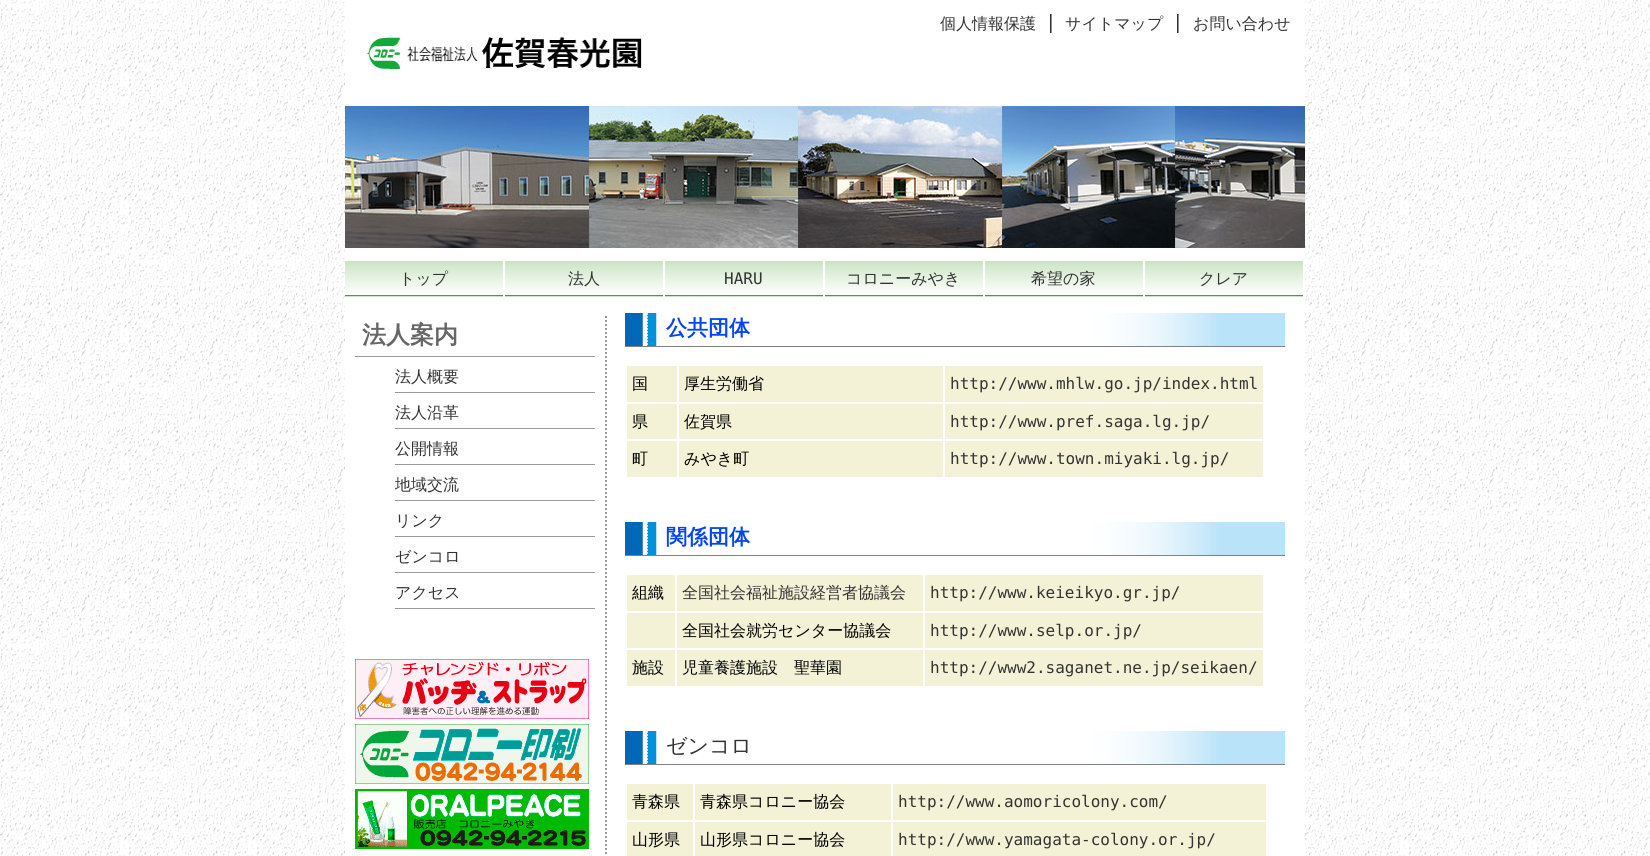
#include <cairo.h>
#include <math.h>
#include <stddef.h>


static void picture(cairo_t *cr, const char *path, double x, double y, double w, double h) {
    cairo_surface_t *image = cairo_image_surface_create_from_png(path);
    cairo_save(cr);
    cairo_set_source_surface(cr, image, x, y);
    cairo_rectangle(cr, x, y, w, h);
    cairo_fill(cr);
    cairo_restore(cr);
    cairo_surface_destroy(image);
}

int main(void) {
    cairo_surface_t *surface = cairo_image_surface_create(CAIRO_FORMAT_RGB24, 1650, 856);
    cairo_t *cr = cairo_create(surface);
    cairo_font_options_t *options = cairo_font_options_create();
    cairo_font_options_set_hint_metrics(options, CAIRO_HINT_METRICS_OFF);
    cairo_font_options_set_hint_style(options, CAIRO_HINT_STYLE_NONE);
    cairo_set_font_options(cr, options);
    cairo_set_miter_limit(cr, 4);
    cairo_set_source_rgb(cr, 1, 1, 1);
    cairo_paint(cr);
    picture(cr, "img1.png", 0, 0, 1650, 856);
    cairo_set_source_rgb(cr, 1, 1, 1);
    cairo_rectangle(cr, 345, 0, 960, 856);
    cairo_fill(cr);
    cairo_select_font_face(cr, "WenQuanYi Zen Hei Medium", CAIRO_FONT_SLANT_NORMAL, CAIRO_FONT_WEIGHT_NORMAL);
    cairo_set_font_size(cr, 16);
    cairo_set_source_rgb(cr, 0.2, 0.2, 0.2);
    cairo_move_to(cr, 940, 29);
    cairo_show_text(cr, "個人情報保護");
    cairo_select_font_face(cr, "DejaVu Sans Mono", CAIRO_FONT_SLANT_NORMAL, CAIRO_FONT_WEIGHT_NORMAL);
    cairo_set_source_rgb(cr, 0, 0, 0);
    cairo_move_to(cr, 1046, 29);
    cairo_show_text(cr, "│");
    cairo_select_font_face(cr, "WenQuanYi Zen Hei Medium", CAIRO_FONT_SLANT_NORMAL, CAIRO_FONT_WEIGHT_NORMAL);
    cairo_set_source_rgb(cr, 0.2, 0.2, 0.2);
    cairo_move_to(cr, 1065, 29);
    cairo_show_text(cr, "サイトマップ");
    cairo_select_font_face(cr, "DejaVu Sans Mono", CAIRO_FONT_SLANT_NORMAL, CAIRO_FONT_WEIGHT_NORMAL);
    cairo_set_source_rgb(cr, 0, 0, 0);
    cairo_move_to(cr, 1173, 29);
    cairo_show_text(cr, "│");
    cairo_select_font_face(cr, "WenQuanYi Zen Hei Medium", CAIRO_FONT_SLANT_NORMAL, CAIRO_FONT_WEIGHT_NORMAL);
    cairo_set_source_rgb(cr, 0.2, 0.2, 0.2);
    cairo_move_to(cr, 1193, 29);
    cairo_show_text(cr, "お問い合わせ");
    picture(cr, "img2.png", 366, 37, 276, 32);
    picture(cr, "img3.png", 345, 106, 960, 142);
    picture(cr, "img4.png", 345, 261, 158, 36);
    cairo_move_to(cr, 399, 284);
    cairo_show_text(cr, "トップ");
    picture(cr, "img4.png", 505, 261, 158, 36);
    cairo_move_to(cr, 568, 284);
    cairo_show_text(cr, "法人");
    picture(cr, "img4.png", 665, 261, 158, 36);
    cairo_select_font_face(cr, "DejaVu Sans Mono", CAIRO_FONT_SLANT_NORMAL, CAIRO_FONT_WEIGHT_NORMAL);
    cairo_move_to(cr, 724, 284);
    cairo_show_text(cr, "HARU");
    picture(cr, "img4.png", 825, 261, 158, 36);
    cairo_select_font_face(cr, "WenQuanYi Zen Hei Medium", CAIRO_FONT_SLANT_NORMAL, CAIRO_FONT_WEIGHT_NORMAL);
    cairo_move_to(cr, 846, 284);
    cairo_show_text(cr, "コロニーみやき");
    picture(cr, "img4.png", 985, 261, 158, 36);
    cairo_move_to(cr, 1031, 284);
    cairo_show_text(cr, "希望の家");
    picture(cr, "img4.png", 1145, 261, 158, 36);
    cairo_move_to(cr, 1199, 284);
    cairo_show_text(cr, "クレア");
    cairo_new_path(cr);
    cairo_move_to(cr, 606, 316);
    cairo_line_to(cr, 606, 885);
    cairo_set_source_rgb(cr, 0.6, 0.6, 0.6);
    cairo_set_dash(cr, (double[]){2, 2}, 2, 0);
    cairo_stroke(cr);
    cairo_select_font_face(cr, "WenQuanYi Zen Hei", CAIRO_FONT_SLANT_NORMAL, CAIRO_FONT_WEIGHT_BOLD);
    cairo_set_font_size(cr, 24);
    cairo_set_source_rgb(cr, 0.4, 0.4, 0.4);
    cairo_move_to(cr, 362, 343);
    cairo_show_text(cr, "法人案内");
    cairo_set_source_rgb(cr, 0.6, 0.6, 0.6);
    cairo_rectangle(cr, 355, 356, 240, 1);
    cairo_fill(cr);
    cairo_rectangle(cr, 395, 392, 200, 1);
    cairo_fill(cr);
    cairo_select_font_face(cr, "WenQuanYi Zen Hei Medium", CAIRO_FONT_SLANT_NORMAL, CAIRO_FONT_WEIGHT_NORMAL);
    cairo_set_font_size(cr, 16);
    cairo_set_source_rgb(cr, 0.2, 0.2, 0.2);
    cairo_move_to(cr, 395, 382);
    cairo_show_text(cr, "法人概要");
    cairo_set_source_rgb(cr, 0.6, 0.6, 0.6);
    cairo_rectangle(cr, 395, 428, 200, 1);
    cairo_fill(cr);
    cairo_set_source_rgb(cr, 0.2, 0.2, 0.2);
    cairo_move_to(cr, 395, 418);
    cairo_show_text(cr, "法人沿革");
    cairo_set_source_rgb(cr, 0.6, 0.6, 0.6);
    cairo_rectangle(cr, 395, 464, 200, 1);
    cairo_fill(cr);
    cairo_set_source_rgb(cr, 0.2, 0.2, 0.2);
    cairo_move_to(cr, 395, 454);
    cairo_show_text(cr, "公開情報");
    cairo_set_source_rgb(cr, 0.6, 0.6, 0.6);
    cairo_rectangle(cr, 395, 500, 200, 1);
    cairo_fill(cr);
    cairo_set_source_rgb(cr, 0.2, 0.2, 0.2);
    cairo_move_to(cr, 395, 490);
    cairo_show_text(cr, "地域交流");
    cairo_set_source_rgb(cr, 0.6, 0.6, 0.6);
    cairo_rectangle(cr, 395, 536, 200, 1);
    cairo_fill(cr);
    cairo_set_source_rgb(cr, 0.2, 0.2, 0.2);
    cairo_move_to(cr, 395, 526);
    cairo_show_text(cr, "リンク");
    cairo_set_source_rgb(cr, 0.6, 0.6, 0.6);
    cairo_rectangle(cr, 395, 572, 200, 1);
    cairo_fill(cr);
    cairo_set_source_rgb(cr, 0.2, 0.2, 0.2);
    cairo_move_to(cr, 395, 562);
    cairo_show_text(cr, "ゼンコロ");
    cairo_set_source_rgb(cr, 0.6, 0.6, 0.6);
    cairo_rectangle(cr, 395, 608, 200, 1);
    cairo_fill(cr);
    cairo_set_source_rgb(cr, 0.2, 0.2, 0.2);
    cairo_move_to(cr, 395, 598);
    cairo_show_text(cr, "アクセス");
    picture(cr, "img5.png", 355, 659, 234, 60);
    picture(cr, "img6.png", 355, 724, 234, 60);
    picture(cr, "img7.png", 355, 789, 234, 60);
    picture(cr, "img8.png", 625, 313, 660, 33);
    cairo_set_source_rgb(cr, 0.506, 0.514, 0.514);
    cairo_rectangle(cr, 625, 346, 660, 1);
    cairo_fill(cr);
    cairo_select_font_face(cr, "WenQuanYi Zen Hei", CAIRO_FONT_SLANT_NORMAL, CAIRO_FONT_WEIGHT_BOLD);
    cairo_set_font_size(cr, 21);
    cairo_set_source_rgb(cr, 0.004, 0.267, 0.984);
    cairo_move_to(cr, 666, 335);
    cairo_show_text(cr, "公共団体");
    cairo_set_source_rgb(cr, 0.953, 0.949, 0.839);
    cairo_rectangle(cr, 627, 366, 50, 36);
    cairo_fill(cr);
    cairo_select_font_face(cr, "WenQuanYi Zen Hei Medium", CAIRO_FONT_SLANT_NORMAL, CAIRO_FONT_WEIGHT_NORMAL);
    cairo_set_font_size(cr, 16);
    cairo_set_source_rgb(cr, 0, 0, 0);
    cairo_move_to(cr, 632, 389);
    cairo_show_text(cr, "国");
    cairo_set_source_rgb(cr, 0.953, 0.949, 0.839);
    cairo_rectangle(cr, 679, 366, 264, 36);
    cairo_fill(cr);
    cairo_set_source_rgb(cr, 0, 0, 0);
    cairo_move_to(cr, 684, 389);
    cairo_show_text(cr, "厚生労働省");
    cairo_set_source_rgb(cr, 0.953, 0.949, 0.839);
    cairo_rectangle(cr, 945, 366, 318, 36);
    cairo_fill(cr);
    cairo_select_font_face(cr, "DejaVu Sans Mono", CAIRO_FONT_SLANT_NORMAL, CAIRO_FONT_WEIGHT_NORMAL);
    cairo_set_source_rgb(cr, 0.2, 0.2, 0.2);
    cairo_move_to(cr, 950, 389);
    cairo_show_text(cr, "http://www.mhlw.go.jp/index.html");
    cairo_set_source_rgb(cr, 0.953, 0.949, 0.839);
    cairo_rectangle(cr, 627, 404, 50, 35);
    cairo_fill(cr);
    cairo_select_font_face(cr, "WenQuanYi Zen Hei Medium", CAIRO_FONT_SLANT_NORMAL, CAIRO_FONT_WEIGHT_NORMAL);
    cairo_set_source_rgb(cr, 0, 0, 0);
    cairo_move_to(cr, 632, 427);
    cairo_show_text(cr, "県");
    cairo_set_source_rgb(cr, 0.953, 0.949, 0.839);
    cairo_rectangle(cr, 679, 404, 264, 35);
    cairo_fill(cr);
    cairo_set_source_rgb(cr, 0, 0, 0);
    cairo_move_to(cr, 684, 427);
    cairo_show_text(cr, "佐賀県");
    cairo_set_source_rgb(cr, 0.953, 0.949, 0.839);
    cairo_rectangle(cr, 945, 404, 318, 35);
    cairo_fill(cr);
    cairo_select_font_face(cr, "DejaVu Sans Mono", CAIRO_FONT_SLANT_NORMAL, CAIRO_FONT_WEIGHT_NORMAL);
    cairo_set_source_rgb(cr, 0.2, 0.2, 0.2);
    cairo_move_to(cr, 950, 427);
    cairo_show_text(cr, "http://www.pref.saga.lg.jp/");
    cairo_set_source_rgb(cr, 0.953, 0.949, 0.839);
    cairo_rectangle(cr, 627, 441, 50, 36);
    cairo_fill(cr);
    cairo_select_font_face(cr, "WenQuanYi Zen Hei Medium", CAIRO_FONT_SLANT_NORMAL, CAIRO_FONT_WEIGHT_NORMAL);
    cairo_set_source_rgb(cr, 0, 0, 0);
    cairo_move_to(cr, 632, 464);
    cairo_show_text(cr, "町");
    cairo_set_source_rgb(cr, 0.953, 0.949, 0.839);
    cairo_rectangle(cr, 679, 441, 264, 36);
    cairo_fill(cr);
    cairo_set_source_rgb(cr, 0, 0, 0);
    cairo_move_to(cr, 684, 464);
    cairo_show_text(cr, "みやき町");
    cairo_set_source_rgb(cr, 0.953, 0.949, 0.839);
    cairo_rectangle(cr, 945, 441, 318, 36);
    cairo_fill(cr);
    cairo_select_font_face(cr, "DejaVu Sans Mono", CAIRO_FONT_SLANT_NORMAL, CAIRO_FONT_WEIGHT_NORMAL);
    cairo_set_source_rgb(cr, 0.2, 0.2, 0.2);
    cairo_move_to(cr, 950, 464);
    cairo_show_text(cr, "http://www.town.miyaki.lg.jp/");
    picture(cr, "img8.png", 625, 522, 660, 33);
    cairo_set_source_rgb(cr, 0.506, 0.514, 0.514);
    cairo_rectangle(cr, 625, 555, 660, 1);
    cairo_fill(cr);
    cairo_select_font_face(cr, "WenQuanYi Zen Hei", CAIRO_FONT_SLANT_NORMAL, CAIRO_FONT_WEIGHT_BOLD);
    cairo_set_font_size(cr, 21);
    cairo_set_source_rgb(cr, 0.004, 0.267, 0.984);
    cairo_move_to(cr, 666, 544);
    cairo_show_text(cr, "関係団体");
    cairo_set_source_rgb(cr, 0.953, 0.949, 0.839);
    cairo_rectangle(cr, 627, 575, 48, 36);
    cairo_fill(cr);
    cairo_select_font_face(cr, "WenQuanYi Zen Hei Medium", CAIRO_FONT_SLANT_NORMAL, CAIRO_FONT_WEIGHT_NORMAL);
    cairo_set_font_size(cr, 16);
    cairo_set_source_rgb(cr, 0, 0, 0);
    cairo_move_to(cr, 632, 598);
    cairo_show_text(cr, "組織");
    cairo_set_source_rgb(cr, 0.953, 0.949, 0.839);
    cairo_rectangle(cr, 677, 575, 246, 36);
    cairo_fill(cr);
    cairo_set_source_rgb(cr, 0.2, 0.2, 0.2);
    cairo_move_to(cr, 682, 598);
    cairo_show_text(cr, "全国社会福祉施設経営者協議会");
    cairo_set_source_rgb(cr, 0.953, 0.949, 0.839);
    cairo_rectangle(cr, 925, 575, 338, 36);
    cairo_fill(cr);
    cairo_select_font_face(cr, "DejaVu Sans Mono", CAIRO_FONT_SLANT_NORMAL, CAIRO_FONT_WEIGHT_NORMAL);
    cairo_set_source_rgb(cr, 0.2, 0.2, 0.2);
    cairo_move_to(cr, 930, 598);
    cairo_show_text(cr, "http://www.keieikyo.gr.jp/");
    cairo_set_source_rgb(cr, 0.953, 0.949, 0.839);
    cairo_rectangle(cr, 627, 613, 48, 35);
    cairo_fill(cr);
    cairo_rectangle(cr, 677, 613, 246, 35);
    cairo_fill(cr);
    cairo_select_font_face(cr, "WenQuanYi Zen Hei Medium", CAIRO_FONT_SLANT_NORMAL, CAIRO_FONT_WEIGHT_NORMAL);
    cairo_set_source_rgb(cr, 0, 0, 0);
    cairo_move_to(cr, 682, 636);
    cairo_show_text(cr, "全国社会就労センター協議会");
    cairo_set_source_rgb(cr, 0.953, 0.949, 0.839);
    cairo_rectangle(cr, 925, 613, 338, 35);
    cairo_fill(cr);
    cairo_select_font_face(cr, "DejaVu Sans Mono", CAIRO_FONT_SLANT_NORMAL, CAIRO_FONT_WEIGHT_NORMAL);
    cairo_set_source_rgb(cr, 0.2, 0.2, 0.2);
    cairo_move_to(cr, 930, 636);
    cairo_show_text(cr, "http://www.selp.or.jp/");
    cairo_set_source_rgb(cr, 0.953, 0.949, 0.839);
    cairo_rectangle(cr, 627, 650, 48, 36);
    cairo_fill(cr);
    cairo_select_font_face(cr, "WenQuanYi Zen Hei Medium", CAIRO_FONT_SLANT_NORMAL, CAIRO_FONT_WEIGHT_NORMAL);
    cairo_set_source_rgb(cr, 0, 0, 0);
    cairo_move_to(cr, 632, 673);
    cairo_show_text(cr, "施設");
    cairo_set_source_rgb(cr, 0.953, 0.949, 0.839);
    cairo_rectangle(cr, 677, 650, 246, 36);
    cairo_fill(cr);
    cairo_set_source_rgb(cr, 0, 0, 0);
    cairo_move_to(cr, 682, 673);
    cairo_show_text(cr, "児童養護施設　聖華園");
    cairo_set_source_rgb(cr, 0.953, 0.949, 0.839);
    cairo_rectangle(cr, 925, 650, 338, 36);
    cairo_fill(cr);
    cairo_select_font_face(cr, "DejaVu Sans Mono", CAIRO_FONT_SLANT_NORMAL, CAIRO_FONT_WEIGHT_NORMAL);
    cairo_set_source_rgb(cr, 0.2, 0.2, 0.2);
    cairo_move_to(cr, 930, 673);
    cairo_show_text(cr, "http://www2.saganet.ne.jp/seikaen/");
    picture(cr, "img8.png", 625, 731, 660, 33);
    cairo_set_source_rgb(cr, 0.506, 0.514, 0.514);
    cairo_rectangle(cr, 625, 764, 660, 1);
    cairo_fill(cr);
    cairo_select_font_face(cr, "WenQuanYi Zen Hei Medium", CAIRO_FONT_SLANT_NORMAL, CAIRO_FONT_WEIGHT_NORMAL);
    cairo_set_font_size(cr, 21);
    cairo_set_source_rgb(cr, 0.2, 0.2, 0.2);
    cairo_move_to(cr, 666, 753);
    cairo_show_text(cr, "ゼンコロ");
    cairo_set_source_rgb(cr, 0.953, 0.949, 0.839);
    cairo_rectangle(cr, 627, 784, 66, 36);
    cairo_fill(cr);
    cairo_set_font_size(cr, 16);
    cairo_set_source_rgb(cr, 0, 0, 0);
    cairo_move_to(cr, 632, 807);
    cairo_show_text(cr, "青森県");
    cairo_set_source_rgb(cr, 0.953, 0.949, 0.839);
    cairo_rectangle(cr, 695, 784, 196, 36);
    cairo_fill(cr);
    cairo_set_source_rgb(cr, 0, 0, 0);
    cairo_move_to(cr, 700, 807);
    cairo_show_text(cr, "青森県コロニー協会");
    cairo_set_source_rgb(cr, 0.953, 0.949, 0.839);
    cairo_rectangle(cr, 893, 784, 373, 36);
    cairo_fill(cr);
    cairo_select_font_face(cr, "DejaVu Sans Mono", CAIRO_FONT_SLANT_NORMAL, CAIRO_FONT_WEIGHT_NORMAL);
    cairo_set_source_rgb(cr, 0.2, 0.2, 0.2);
    cairo_move_to(cr, 898, 807);
    cairo_show_text(cr, "http://www.aomoricolony.com/");
    cairo_set_source_rgb(cr, 0.953, 0.949, 0.839);
    cairo_rectangle(cr, 627, 822, 66, 34);
    cairo_fill(cr);
    cairo_select_font_face(cr, "WenQuanYi Zen Hei Medium", CAIRO_FONT_SLANT_NORMAL, CAIRO_FONT_WEIGHT_NORMAL);
    cairo_set_source_rgb(cr, 0, 0, 0);
    cairo_move_to(cr, 632, 845);
    cairo_show_text(cr, "山形県");
    cairo_set_source_rgb(cr, 0.953, 0.949, 0.839);
    cairo_rectangle(cr, 695, 822, 196, 34);
    cairo_fill(cr);
    cairo_set_source_rgb(cr, 0, 0, 0);
    cairo_move_to(cr, 700, 845);
    cairo_show_text(cr, "山形県コロニー協会");
    cairo_set_source_rgb(cr, 0.953, 0.949, 0.839);
    cairo_rectangle(cr, 893, 822, 373, 34);
    cairo_fill(cr);
    cairo_select_font_face(cr, "DejaVu Sans Mono", CAIRO_FONT_SLANT_NORMAL, CAIRO_FONT_WEIGHT_NORMAL);
    cairo_set_source_rgb(cr, 0.2, 0.2, 0.2);
    cairo_move_to(cr, 898, 845);
    cairo_show_text(cr, "http://www.yamagata-colony.or.jp/");
    cairo_surface_write_to_png(surface, "page.png");
    cairo_font_options_destroy(options);
    cairo_destroy(cr);
    cairo_surface_destroy(surface);
    return 0;
}
